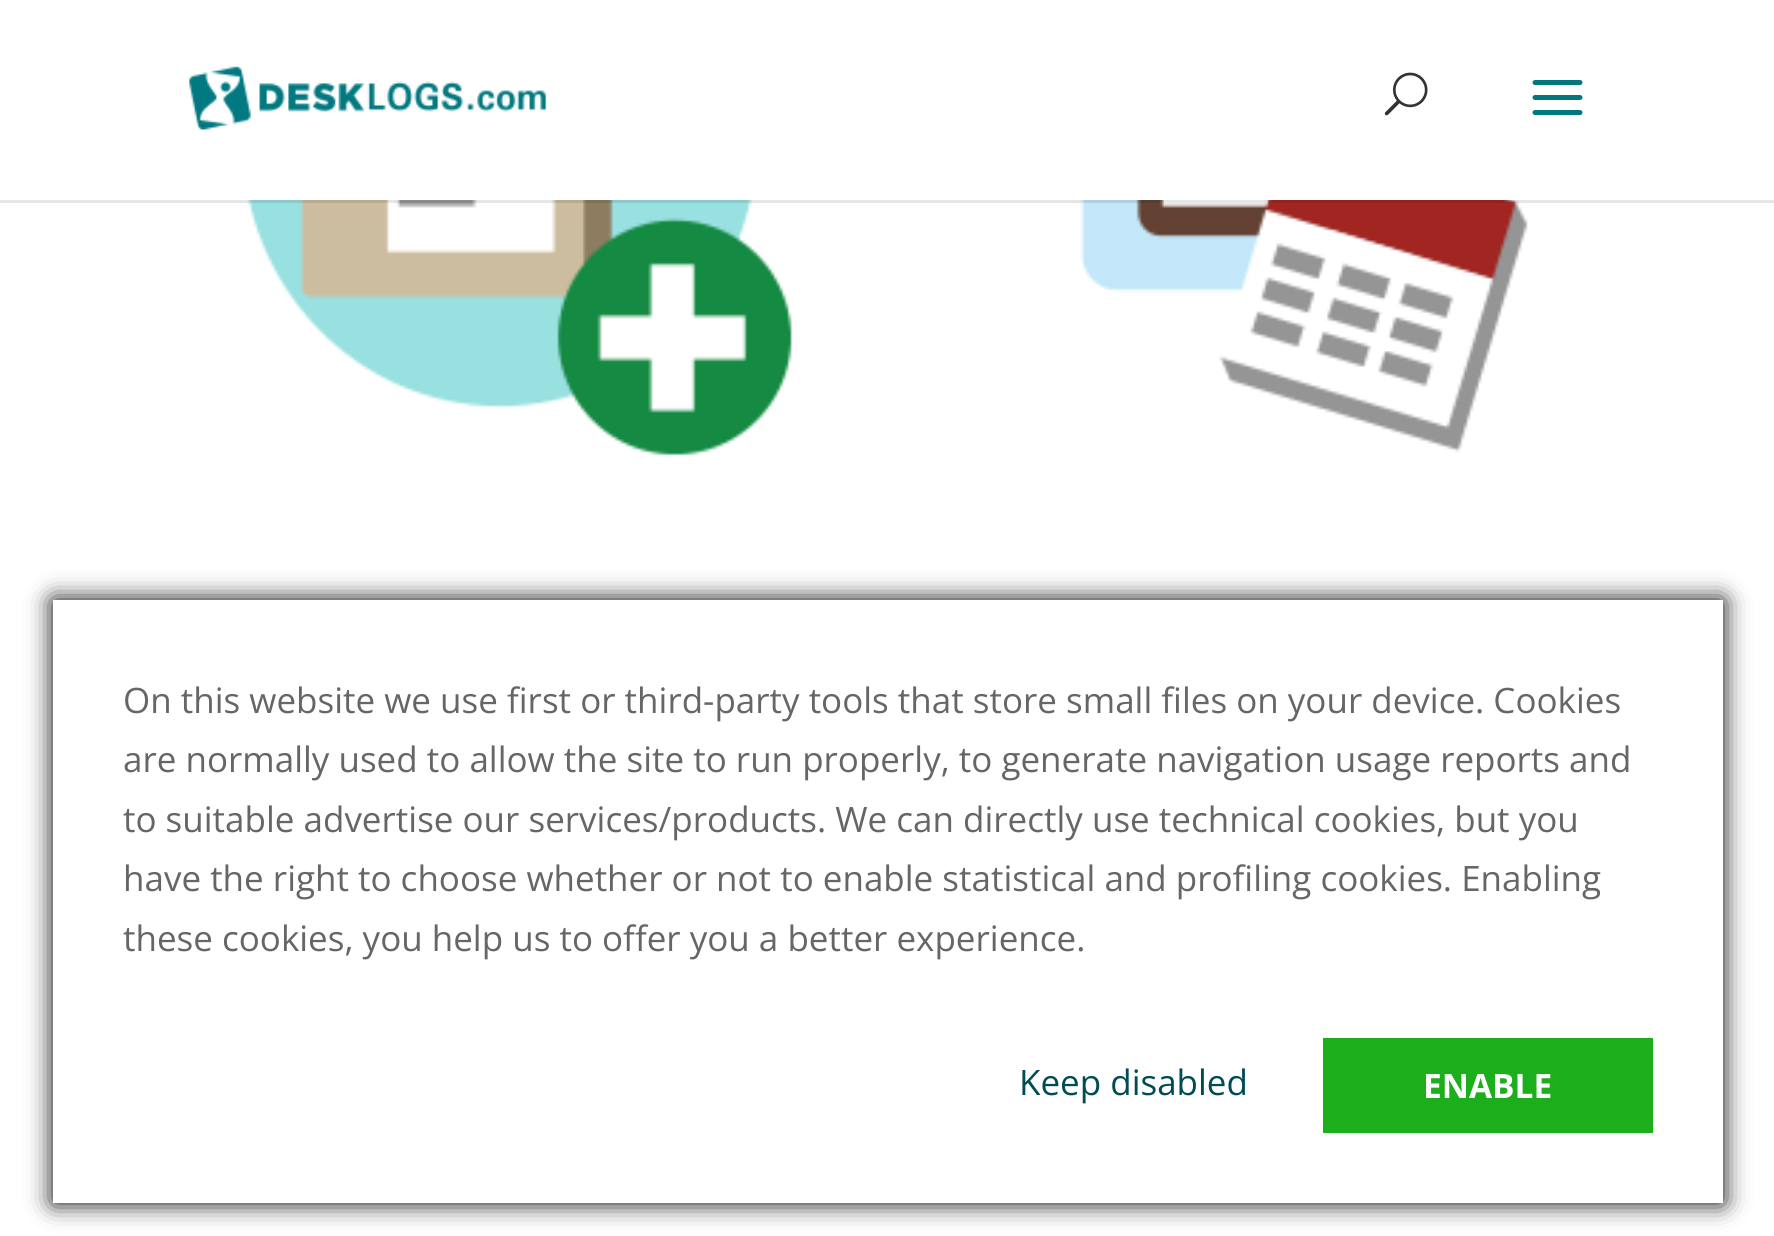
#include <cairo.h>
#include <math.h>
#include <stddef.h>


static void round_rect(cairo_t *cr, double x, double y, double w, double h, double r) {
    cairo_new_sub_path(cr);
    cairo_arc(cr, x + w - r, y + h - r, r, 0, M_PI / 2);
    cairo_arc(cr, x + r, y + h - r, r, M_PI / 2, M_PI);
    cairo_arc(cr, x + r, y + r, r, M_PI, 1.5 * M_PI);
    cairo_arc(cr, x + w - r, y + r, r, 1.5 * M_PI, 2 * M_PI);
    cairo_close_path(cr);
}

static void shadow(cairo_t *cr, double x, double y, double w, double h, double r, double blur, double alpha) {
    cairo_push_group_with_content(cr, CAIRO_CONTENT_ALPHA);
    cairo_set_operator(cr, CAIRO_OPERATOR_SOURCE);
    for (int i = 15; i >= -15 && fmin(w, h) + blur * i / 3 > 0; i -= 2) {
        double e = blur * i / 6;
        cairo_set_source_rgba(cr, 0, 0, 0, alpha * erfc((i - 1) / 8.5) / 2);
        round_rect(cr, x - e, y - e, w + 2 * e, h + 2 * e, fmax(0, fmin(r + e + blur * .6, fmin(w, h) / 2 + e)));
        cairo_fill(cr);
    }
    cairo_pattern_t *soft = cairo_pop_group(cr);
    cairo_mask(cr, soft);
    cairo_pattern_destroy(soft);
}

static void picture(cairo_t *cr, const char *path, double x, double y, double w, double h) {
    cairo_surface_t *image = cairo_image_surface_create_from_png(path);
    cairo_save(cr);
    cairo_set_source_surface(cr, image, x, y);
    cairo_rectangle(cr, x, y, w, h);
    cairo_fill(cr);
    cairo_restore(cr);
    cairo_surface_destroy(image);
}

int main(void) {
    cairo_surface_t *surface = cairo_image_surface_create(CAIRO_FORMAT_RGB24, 1774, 1236);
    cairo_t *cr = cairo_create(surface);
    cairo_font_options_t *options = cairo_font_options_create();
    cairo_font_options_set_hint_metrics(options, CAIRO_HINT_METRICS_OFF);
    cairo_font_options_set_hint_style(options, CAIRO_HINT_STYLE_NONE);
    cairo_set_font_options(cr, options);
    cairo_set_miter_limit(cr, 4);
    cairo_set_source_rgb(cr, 1, 1, 1);
    cairo_paint(cr);
    picture(cr, "img4.png", 247, 200, 1281, 256);
    cairo_set_source_rgba(cr, 0, 0, 0, 0.1);
    cairo_rectangle(cr, 0, 200, 1774, 3);
    cairo_fill(cr);
    picture(cr, "img1.png", 189, 66, 358, 64);
    picture(cr, "img2.png", 1384, 72, 44, 44);
    picture(cr, "img3.png", 1532, 80, 51, 35);
    cairo_set_source_rgb(cr, 0, 0, 0);
    shadow(cr, 53, 600, 1670, 603, 0, 12.5, 1);
    cairo_set_source_rgb(cr, 1, 1, 1);
    cairo_rectangle(cr, 53, 600, 1670, 603);
    cairo_fill(cr);
    cairo_select_font_face(cr, "Open Sans", CAIRO_FONT_SLANT_NORMAL, CAIRO_FONT_WEIGHT_NORMAL);
    cairo_set_font_size(cr, 35);
    cairo_set_source_rgb(cr, 0.4, 0.4, 0.4);
    cairo_move_to(cr, 123, 713);
    cairo_show_text(cr, "On this website we use first or third-party tools that store small files on your device. Cookies");
    cairo_move_to(cr, 123, 772);
    cairo_show_text(cr, "are normally used to allow the site to run properly, to generate navigation usage reports and");
    cairo_move_to(cr, 123, 832);
    cairo_show_text(cr, "to suitable advertise our services/products. We can directly use technical cookies, but you");
    cairo_move_to(cr, 123, 891);
    cairo_show_text(cr, "have the right to choose whether or not to enable statistical and profiling cookies. Enabling");
    cairo_move_to(cr, 123, 951);
    cairo_show_text(cr, "these cookies, you help us to offer you a better experience.");
    cairo_set_source_rgb(cr, 0, 0.298, 0.329);
    cairo_move_to(cr, 1019, 1095);
    cairo_show_text(cr, "Keep disabled");
    cairo_set_source_rgb(cr, 0.114, 0.682, 0.11);
    cairo_rectangle(cr, 1323, 1038, 330, 95);
    cairo_fill(cr);
    cairo_select_font_face(cr, "Open Sans", CAIRO_FONT_SLANT_NORMAL, CAIRO_FONT_WEIGHT_BOLD);
    cairo_set_font_size(cr, 33.5);
    cairo_set_source_rgb(cr, 1, 1, 1);
    cairo_move_to(cr, 1423, 1098);
    cairo_show_text(cr, "ENABLE");
    cairo_surface_write_to_png(surface, "page.png");
    cairo_font_options_destroy(options);
    cairo_destroy(cr);
    cairo_surface_destroy(surface);
    return 0;
}
